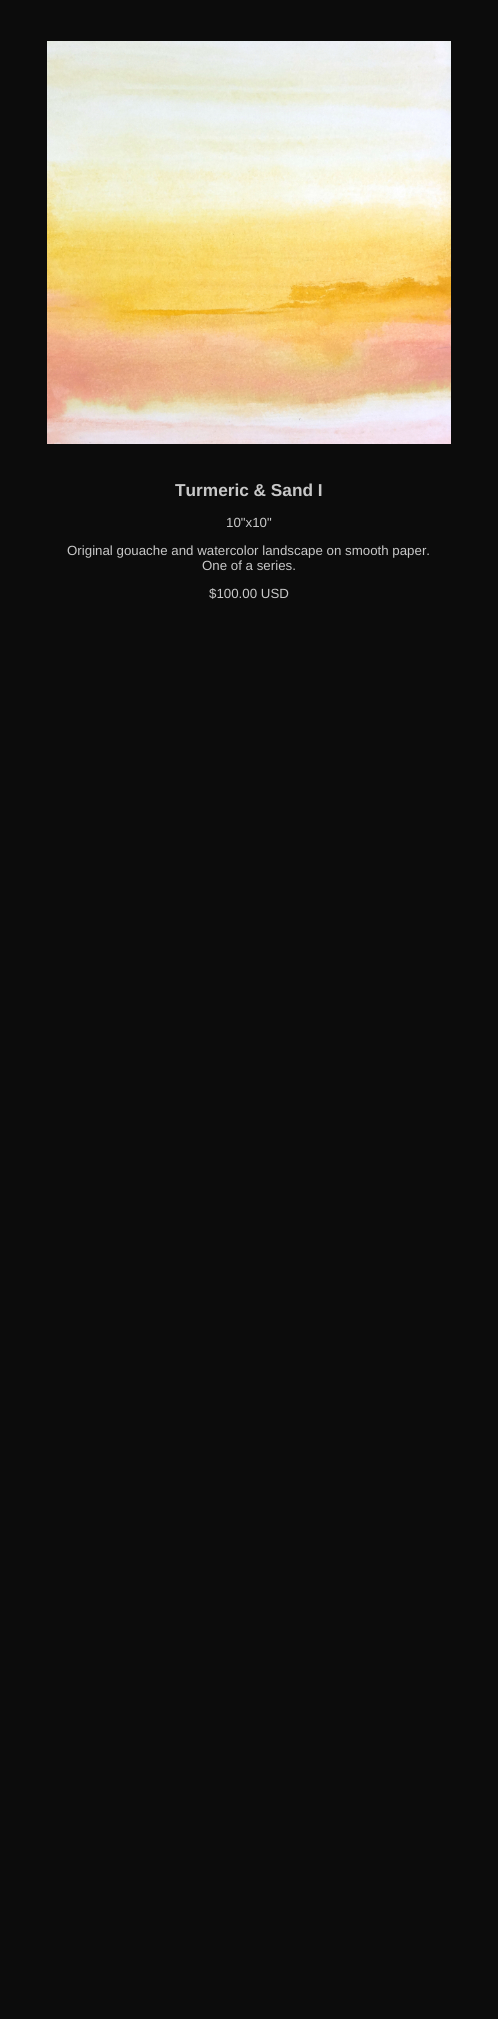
#include <cairo.h>
#include <math.h>
#include <stddef.h>


static void picture(cairo_t *cr, const char *path, double x, double y, double w, double h) {
    cairo_surface_t *image = cairo_image_surface_create_from_png(path);
    cairo_save(cr);
    cairo_set_source_surface(cr, image, x, y);
    cairo_rectangle(cr, x, y, w, h);
    cairo_fill(cr);
    cairo_restore(cr);
    cairo_surface_destroy(image);
}

int main(void) {
    cairo_surface_t *surface = cairo_image_surface_create(CAIRO_FORMAT_RGB24, 498, 2019);
    cairo_t *cr = cairo_create(surface);
    cairo_font_options_t *options = cairo_font_options_create();
    cairo_font_options_set_hint_metrics(options, CAIRO_HINT_METRICS_OFF);
    cairo_font_options_set_hint_style(options, CAIRO_HINT_STYLE_NONE);
    cairo_set_font_options(cr, options);
    cairo_set_miter_limit(cr, 4);
    cairo_set_source_rgb(cr, 0.047, 0.047, 0.047);
    cairo_paint(cr);
    picture(cr, "img1.png", 47, 41, 404, 403);
    cairo_select_font_face(cr, "Liberation Sans", CAIRO_FONT_SLANT_NORMAL, CAIRO_FONT_WEIGHT_BOLD);
    cairo_set_font_size(cr, 17.25);
    cairo_set_source_rgb(cr, 0.784, 0.784, 0.784);
    cairo_move_to(cr, 175, 496);
    cairo_show_text(cr, "Turmeric & Sand I");
    cairo_select_font_face(cr, "Liberation Sans", CAIRO_FONT_SLANT_NORMAL, CAIRO_FONT_WEIGHT_NORMAL);
    cairo_set_font_size(cr, 13.3);
    cairo_move_to(cr, 226, 527);
    cairo_show_text(cr, "10\"x10\"");
    cairo_move_to(cr, 67, 555);
    cairo_show_text(cr, "Original gouache and watercolor landscape on smooth paper.");
    cairo_move_to(cr, 202, 570);
    cairo_show_text(cr, "One of a series.");
    cairo_move_to(cr, 209, 598);
    cairo_show_text(cr, "$100.00 USD");
    cairo_surface_write_to_png(surface, "page.png");
    cairo_font_options_destroy(options);
    cairo_destroy(cr);
    cairo_surface_destroy(surface);
    return 0;
}
